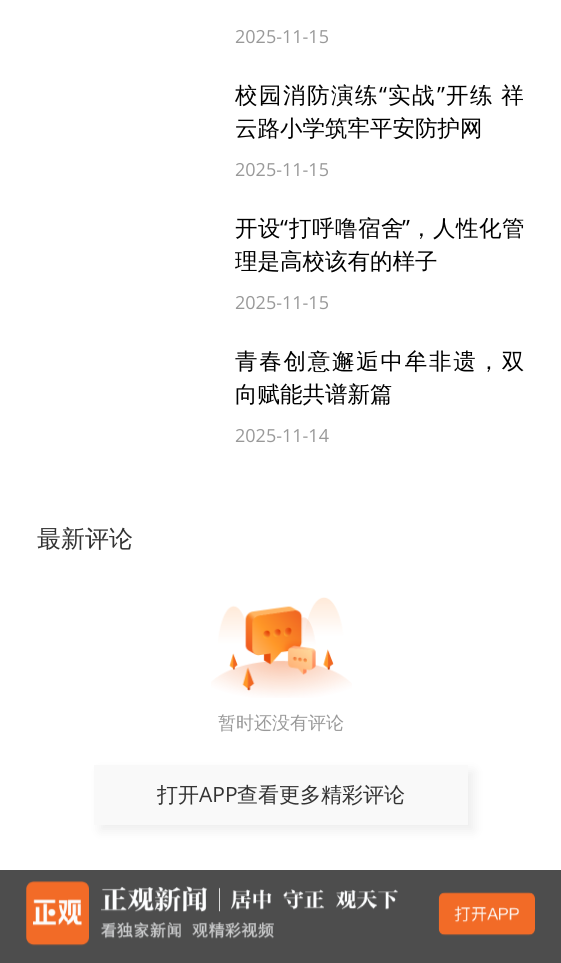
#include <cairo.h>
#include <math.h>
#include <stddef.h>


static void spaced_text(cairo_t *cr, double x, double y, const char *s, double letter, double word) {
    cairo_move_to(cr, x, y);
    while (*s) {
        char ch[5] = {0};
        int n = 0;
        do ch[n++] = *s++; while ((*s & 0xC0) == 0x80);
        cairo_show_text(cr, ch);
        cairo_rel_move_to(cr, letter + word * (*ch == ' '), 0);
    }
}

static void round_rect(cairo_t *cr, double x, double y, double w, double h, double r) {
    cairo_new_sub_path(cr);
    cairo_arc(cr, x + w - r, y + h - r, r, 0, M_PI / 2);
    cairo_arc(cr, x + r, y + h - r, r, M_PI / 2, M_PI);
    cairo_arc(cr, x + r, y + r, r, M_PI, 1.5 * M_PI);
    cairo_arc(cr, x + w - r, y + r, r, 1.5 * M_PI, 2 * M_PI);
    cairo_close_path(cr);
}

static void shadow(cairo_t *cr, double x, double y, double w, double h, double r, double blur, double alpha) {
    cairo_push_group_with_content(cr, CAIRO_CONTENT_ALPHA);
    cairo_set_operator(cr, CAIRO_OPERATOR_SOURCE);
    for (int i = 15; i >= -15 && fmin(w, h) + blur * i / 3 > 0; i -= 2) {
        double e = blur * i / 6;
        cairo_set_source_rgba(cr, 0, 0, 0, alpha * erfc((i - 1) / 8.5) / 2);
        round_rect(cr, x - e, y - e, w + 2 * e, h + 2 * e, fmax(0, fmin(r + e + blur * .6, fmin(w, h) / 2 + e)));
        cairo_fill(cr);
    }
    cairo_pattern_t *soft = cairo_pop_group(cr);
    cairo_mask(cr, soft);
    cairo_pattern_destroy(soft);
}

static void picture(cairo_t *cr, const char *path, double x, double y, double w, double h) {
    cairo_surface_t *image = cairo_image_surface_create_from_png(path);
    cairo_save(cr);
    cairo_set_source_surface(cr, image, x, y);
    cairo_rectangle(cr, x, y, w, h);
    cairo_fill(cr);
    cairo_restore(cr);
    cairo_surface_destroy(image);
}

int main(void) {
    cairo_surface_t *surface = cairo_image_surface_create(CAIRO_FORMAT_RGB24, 561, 963);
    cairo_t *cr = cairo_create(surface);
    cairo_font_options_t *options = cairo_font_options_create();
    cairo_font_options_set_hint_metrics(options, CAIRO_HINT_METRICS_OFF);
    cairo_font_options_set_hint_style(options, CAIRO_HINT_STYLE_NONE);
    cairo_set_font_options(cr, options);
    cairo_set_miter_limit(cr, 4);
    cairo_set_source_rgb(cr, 1, 1, 1);
    cairo_paint(cr);
    cairo_select_font_face(cr, "Open Sans", CAIRO_FONT_SLANT_NORMAL, CAIRO_FONT_WEIGHT_NORMAL);
    cairo_set_font_size(cr, 18);
    cairo_set_source_rgb(cr, 0.6, 0.6, 0.6);
    cairo_move_to(cr, 235, 43);
    cairo_show_text(cr, "2025-11-15");
    cairo_select_font_face(cr, "WenQuanYi Zen Hei Medium", CAIRO_FONT_SLANT_NORMAL, CAIRO_FONT_WEIGHT_NORMAL);
    cairo_set_font_size(cr, 22.5);
    cairo_set_source_rgb(cr, 0, 0, 0);
    spaced_text(cr, 235, 103, "校园消防演练", 1.5, 0);
    cairo_select_font_face(cr, "Open Sans", CAIRO_FONT_SLANT_NORMAL, CAIRO_FONT_WEIGHT_NORMAL);
    spaced_text(cr, 379, 103, "“", 1.5, 0);
    cairo_select_font_face(cr, "WenQuanYi Zen Hei Medium", CAIRO_FONT_SLANT_NORMAL, CAIRO_FONT_WEIGHT_NORMAL);
    spaced_text(cr, 388, 103, "实战", 1.5, 0);
    cairo_select_font_face(cr, "Open Sans", CAIRO_FONT_SLANT_NORMAL, CAIRO_FONT_WEIGHT_NORMAL);
    spaced_text(cr, 437, 103, "”", 1.5, 0);
    cairo_select_font_face(cr, "WenQuanYi Zen Hei Medium", CAIRO_FONT_SLANT_NORMAL, CAIRO_FONT_WEIGHT_NORMAL);
    spaced_text(cr, 446, 103, "开练 祥", 1.5, -1);
    cairo_move_to(cr, 235, 136);
    cairo_show_text(cr, "云路小学筑牢平安防护网");
    cairo_select_font_face(cr, "Open Sans", CAIRO_FONT_SLANT_NORMAL, CAIRO_FONT_WEIGHT_NORMAL);
    cairo_set_font_size(cr, 18);
    cairo_set_source_rgb(cr, 0.6, 0.6, 0.6);
    cairo_move_to(cr, 235, 176);
    cairo_show_text(cr, "2025-11-15");
    cairo_select_font_face(cr, "WenQuanYi Zen Hei Medium", CAIRO_FONT_SLANT_NORMAL, CAIRO_FONT_WEIGHT_NORMAL);
    cairo_set_font_size(cr, 22.5);
    cairo_set_source_rgb(cr, 0, 0, 0);
    spaced_text(cr, 235, 236, "开设", 0.5, 0);
    cairo_select_font_face(cr, "Open Sans", CAIRO_FONT_SLANT_NORMAL, CAIRO_FONT_WEIGHT_NORMAL);
    spaced_text(cr, 280, 236, "“", 0.5, 0);
    cairo_select_font_face(cr, "WenQuanYi Zen Hei Medium", CAIRO_FONT_SLANT_NORMAL, CAIRO_FONT_WEIGHT_NORMAL);
    spaced_text(cr, 289, 236, "打呼噜宿舍", 0.5, 0);
    cairo_select_font_face(cr, "Open Sans", CAIRO_FONT_SLANT_NORMAL, CAIRO_FONT_WEIGHT_NORMAL);
    spaced_text(cr, 402, 236, "”", 0.5, 0);
    cairo_select_font_face(cr, "WenQuanYi Zen Hei Medium", CAIRO_FONT_SLANT_NORMAL, CAIRO_FONT_WEIGHT_NORMAL);
    spaced_text(cr, 410, 236, "，人性化管", 0.5, 0);
    cairo_move_to(cr, 235, 269);
    cairo_show_text(cr, "理是高校该有的样子");
    cairo_select_font_face(cr, "Open Sans", CAIRO_FONT_SLANT_NORMAL, CAIRO_FONT_WEIGHT_NORMAL);
    cairo_set_font_size(cr, 18);
    cairo_set_source_rgb(cr, 0.6, 0.6, 0.6);
    cairo_move_to(cr, 235, 309);
    cairo_show_text(cr, "2025-11-15");
    cairo_select_font_face(cr, "WenQuanYi Zen Hei Medium", CAIRO_FONT_SLANT_NORMAL, CAIRO_FONT_WEIGHT_NORMAL);
    cairo_set_font_size(cr, 22.5);
    cairo_set_source_rgb(cr, 0, 0, 0);
    spaced_text(cr, 235, 369, "青春创意邂逅中牟非遗，双", 1.75, 0);
    cairo_move_to(cr, 235, 402);
    cairo_show_text(cr, "向赋能共谱新篇");
    cairo_select_font_face(cr, "Open Sans", CAIRO_FONT_SLANT_NORMAL, CAIRO_FONT_WEIGHT_NORMAL);
    cairo_set_font_size(cr, 18);
    cairo_set_source_rgb(cr, 0.6, 0.6, 0.6);
    cairo_move_to(cr, 235, 442);
    cairo_show_text(cr, "2025-11-14");
    cairo_select_font_face(cr, "WenQuanYi Zen Hei Medium", CAIRO_FONT_SLANT_NORMAL, CAIRO_FONT_WEIGHT_NORMAL);
    cairo_set_font_size(cr, 24);
    cairo_set_source_rgb(cr, 0.2, 0.2, 0.2);
    cairo_move_to(cr, 37, 547);
    cairo_show_text(cr, "最新评论");
    picture(cr, "img1.png", 211, 597, 141, 101);
    cairo_set_font_size(cr, 18);
    cairo_set_source_rgb(cr, 0.6, 0.6, 0.6);
    cairo_move_to(cr, 218, 729);
    cairo_show_text(cr, "暂时还没有评论");
    cairo_set_source_rgb(cr, 0, 0, 0);
    shadow(cr, 100, 771, 374, 60, 0, 6, 0.07);
    cairo_set_source_rgb(cr, 0.976, 0.976, 0.976);
    cairo_rectangle(cr, 94, 765, 374, 60);
    cairo_fill(cr);
    cairo_set_font_size(cr, 21);
    cairo_set_source_rgb(cr, 0.2, 0.2, 0.2);
    cairo_move_to(cr, 157, 802);
    cairo_show_text(cr, "打开");
    cairo_select_font_face(cr, "Open Sans", CAIRO_FONT_SLANT_NORMAL, CAIRO_FONT_WEIGHT_NORMAL);
    cairo_move_to(cr, 199, 802);
    cairo_show_text(cr, "APP");
    cairo_select_font_face(cr, "WenQuanYi Zen Hei Medium", CAIRO_FONT_SLANT_NORMAL, CAIRO_FONT_WEIGHT_NORMAL);
    cairo_move_to(cr, 237, 802);
    cairo_show_text(cr, "查看更多精彩评论");
    cairo_set_source_rgb(cr, 0.302, 0.302, 0.302);
    cairo_rectangle(cr, 0, 870, 561, 93);
    cairo_fill(cr);
    picture(cr, "img2.png", 26, 881, 372, 65);
    picture(cr, "img3.png", 438, 892, 97, 44);
    cairo_surface_write_to_png(surface, "page.png");
    cairo_font_options_destroy(options);
    cairo_destroy(cr);
    cairo_surface_destroy(surface);
    return 0;
}
